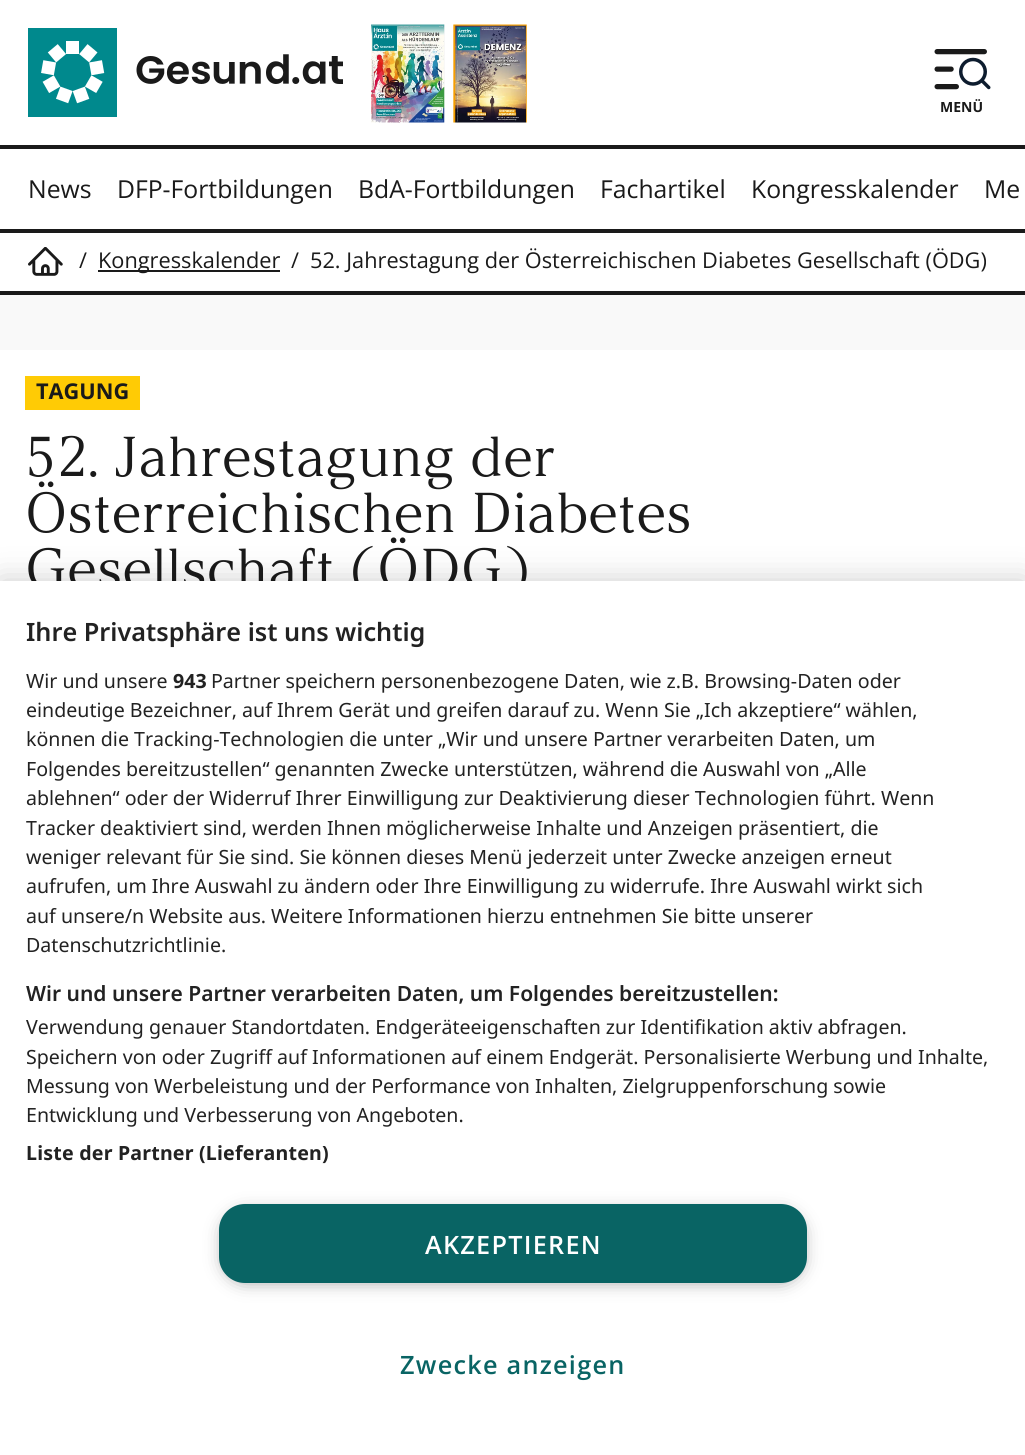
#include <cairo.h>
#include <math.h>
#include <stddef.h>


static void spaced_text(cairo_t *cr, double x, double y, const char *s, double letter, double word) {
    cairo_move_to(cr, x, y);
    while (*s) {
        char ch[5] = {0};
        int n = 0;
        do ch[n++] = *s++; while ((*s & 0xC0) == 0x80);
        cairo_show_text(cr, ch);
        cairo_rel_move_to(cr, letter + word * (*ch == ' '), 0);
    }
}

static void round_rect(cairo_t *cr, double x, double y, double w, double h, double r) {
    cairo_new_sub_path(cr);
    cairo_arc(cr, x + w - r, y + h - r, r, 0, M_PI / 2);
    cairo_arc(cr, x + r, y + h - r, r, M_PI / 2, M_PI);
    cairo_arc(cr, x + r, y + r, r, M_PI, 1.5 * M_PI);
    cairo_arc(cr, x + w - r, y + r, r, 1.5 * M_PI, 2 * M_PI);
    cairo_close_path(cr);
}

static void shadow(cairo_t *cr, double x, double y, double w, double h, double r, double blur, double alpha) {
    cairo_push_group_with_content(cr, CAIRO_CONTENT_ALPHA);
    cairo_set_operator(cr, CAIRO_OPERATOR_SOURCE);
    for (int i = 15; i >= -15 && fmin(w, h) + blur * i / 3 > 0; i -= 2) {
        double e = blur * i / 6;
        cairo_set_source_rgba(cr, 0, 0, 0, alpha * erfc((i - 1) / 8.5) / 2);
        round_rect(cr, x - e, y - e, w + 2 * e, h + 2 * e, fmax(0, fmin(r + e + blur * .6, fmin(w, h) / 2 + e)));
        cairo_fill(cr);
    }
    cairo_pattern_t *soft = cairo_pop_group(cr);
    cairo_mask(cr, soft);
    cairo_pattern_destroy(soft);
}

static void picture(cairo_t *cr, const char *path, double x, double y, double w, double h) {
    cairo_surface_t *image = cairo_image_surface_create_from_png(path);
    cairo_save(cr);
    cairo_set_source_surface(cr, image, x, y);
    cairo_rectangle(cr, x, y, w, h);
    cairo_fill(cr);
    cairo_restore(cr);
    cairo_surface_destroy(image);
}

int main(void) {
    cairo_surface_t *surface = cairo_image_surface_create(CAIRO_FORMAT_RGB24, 1025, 1455);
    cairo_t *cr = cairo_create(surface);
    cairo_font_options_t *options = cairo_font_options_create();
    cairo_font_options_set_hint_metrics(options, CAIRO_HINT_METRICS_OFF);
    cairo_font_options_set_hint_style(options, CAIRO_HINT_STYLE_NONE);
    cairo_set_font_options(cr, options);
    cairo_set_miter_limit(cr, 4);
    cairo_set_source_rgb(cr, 0.976, 0.976, 0.976);
    cairo_paint(cr);
    cairo_set_source_rgb(cr, 1, 1, 1);
    cairo_rectangle(cr, 0, 0, 1025, 229);
    cairo_fill(cr);
    cairo_set_source_rgb(cr, 0.102, 0.102, 0.102);
    cairo_rectangle(cr, 0, 229, 1025, 4);
    cairo_fill(cr);
    picture(cr, "img1.png", 28, 28, 315, 89);
    picture(cr, "img2.png", 371, 24, 74, 99);
    picture(cr, "img3.png", 453, 24, 74, 99);
    picture(cr, "img4.png", 934, 49, 57, 41);
    cairo_select_font_face(cr, "Open Sans", CAIRO_FONT_SLANT_NORMAL, CAIRO_FONT_WEIGHT_BOLD);
    cairo_set_font_size(cr, 14);
    cairo_move_to(cr, 940, 112);
    cairo_show_text(cr, "MENÜ");
    cairo_rectangle(cr, 0, 145, 1025, 4);
    cairo_fill(cr);
    cairo_select_font_face(cr, "Open Sans", CAIRO_FONT_SLANT_NORMAL, CAIRO_FONT_WEIGHT_NORMAL);
    cairo_set_font_size(cr, 24.75);
    cairo_move_to(cr, 28, 198);
    cairo_show_text(cr, "News");
    cairo_move_to(cr, 117, 198);
    cairo_show_text(cr, "DFP-Fortbildungen");
    cairo_move_to(cr, 358, 198);
    cairo_show_text(cr, "BdA-Fortbildungen");
    cairo_move_to(cr, 600, 198);
    cairo_show_text(cr, "Fachartikel");
    cairo_move_to(cr, 751, 198);
    cairo_show_text(cr, "Kongresskalender");
    cairo_move_to(cr, 984, 198);
    cairo_show_text(cr, "Me");
    cairo_set_source_rgb(cr, 1, 1, 1);
    cairo_rectangle(cr, 0, 233, 1025, 58);
    cairo_fill(cr);
    cairo_set_source_rgb(cr, 0.102, 0.102, 0.102);
    cairo_rectangle(cr, 0, 291, 1025, 4);
    cairo_fill(cr);
    picture(cr, "img5.png", 28, 247, 35, 29);
    cairo_set_font_size(cr, 21.75);
    cairo_move_to(cr, 79, 268);
    cairo_show_text(cr, "/");
    cairo_rectangle(cr, 98, 270, 182, 2);
    cairo_fill(cr);
    cairo_move_to(cr, 98, 268);
    cairo_show_text(cr, "Kongresskalender");
    cairo_move_to(cr, 291, 268);
    cairo_show_text(cr, "/");
    cairo_move_to(cr, 310, 268);
    cairo_show_text(cr, "52. Jahrestagung der Österreichischen Diabetes Gesellschaft (ÖDG)");
    cairo_set_source_rgb(cr, 1, 1, 1);
    cairo_rectangle(cr, 0, 350, 1025, 231);
    cairo_fill(cr);
    cairo_set_source_rgb(cr, 1, 0.796, 0.02);
    cairo_rectangle(cr, 25, 376, 115, 34);
    cairo_fill(cr);
    cairo_select_font_face(cr, "Open Sans", CAIRO_FONT_SLANT_NORMAL, CAIRO_FONT_WEIGHT_BOLD);
    cairo_set_source_rgb(cr, 0.102, 0.102, 0.102);
    cairo_move_to(cr, 36, 399);
    cairo_show_text(cr, "TAGUNG");
    cairo_select_font_face(cr, "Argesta", CAIRO_FONT_SLANT_NORMAL, CAIRO_FONT_WEIGHT_NORMAL);
    cairo_set_font_size(cr, 56);
    cairo_move_to(cr, 25, 476);
    cairo_show_text(cr, "52. Jahrestagung der");
    cairo_move_to(cr, 25, 532);
    cairo_show_text(cr, "Österreichischen Diabetes");
    cairo_move_to(cr, 25, 588);
    cairo_show_text(cr, "Gesellschaft (ÖDG)");
    cairo_set_source_rgb(cr, 0, 0, 0);
    shadow(cr, 0, 581, 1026, 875, 0, 16, 0.2);
    cairo_set_source_rgb(cr, 1, 1, 1);
    cairo_rectangle(cr, 0, 581, 1025, 874);
    cairo_fill(cr);
    cairo_select_font_face(cr, "Noto Sans SemiBold", CAIRO_FONT_SLANT_NORMAL, CAIRO_FONT_WEIGHT_NORMAL);
    cairo_set_font_size(cr, 25.25);
    cairo_set_source_rgb(cr, 0.133, 0.133, 0.133);
    cairo_move_to(cr, 26, 641);
    cairo_show_text(cr, "Ihre Privatsphäre ist uns wichtig");
    cairo_select_font_face(cr, "Noto Sans", CAIRO_FONT_SLANT_NORMAL, CAIRO_FONT_WEIGHT_NORMAL);
    cairo_set_font_size(cr, 19.6);
    cairo_move_to(cr, 26, 688);
    cairo_show_text(cr, "Wir und unsere");
    cairo_select_font_face(cr, "Noto Sans", CAIRO_FONT_SLANT_NORMAL, CAIRO_FONT_WEIGHT_BOLD);
    cairo_move_to(cr, 173, 688);
    cairo_show_text(cr, "943");
    cairo_select_font_face(cr, "Noto Sans", CAIRO_FONT_SLANT_NORMAL, CAIRO_FONT_WEIGHT_NORMAL);
    cairo_move_to(cr, 211, 688);
    cairo_show_text(cr, "Partner speichern personenbezogene Daten, wie z.B. Browsing-Daten oder");
    cairo_move_to(cr, 26, 717);
    cairo_show_text(cr, "eindeutige Bezeichner, auf Ihrem Gerät und greifen darauf zu. Wenn Sie „Ich akzeptiere“ wählen,");
    cairo_move_to(cr, 26, 746);
    cairo_show_text(cr, "können die Tracking-Technologien die unter „Wir und unsere Partner verarbeiten Daten, um");
    cairo_move_to(cr, 26, 776);
    cairo_show_text(cr, "Folgendes bereitzustellen“ genannten Zwecke unterstützen, während die Auswahl von „Alle");
    cairo_move_to(cr, 26, 805);
    cairo_show_text(cr, "ablehnen“ oder der Widerruf Ihrer Einwilligung zur Deaktivierung dieser Technologien führt. Wenn");
    cairo_move_to(cr, 26, 835);
    cairo_show_text(cr, "Tracker deaktiviert sind, werden Ihnen möglicherweise Inhalte und Anzeigen präsentiert, die");
    cairo_move_to(cr, 26, 864);
    cairo_show_text(cr, "weniger relevant für Sie sind. Sie können dieses Menü jederzeit unter Zwecke anzeigen erneut");
    cairo_move_to(cr, 26, 893);
    cairo_show_text(cr, "aufrufen, um Ihre Auswahl zu ändern oder Ihre Einwilligung zu widerrufe. Ihre Auswahl wirkt sich");
    cairo_move_to(cr, 26, 923);
    cairo_show_text(cr, "auf unsere/n Website aus. Weitere Informationen hierzu entnehmen Sie bitte unserer");
    cairo_move_to(cr, 26, 952);
    cairo_show_text(cr, "Datenschutzrichtlinie.");
    cairo_select_font_face(cr, "Noto Sans SemiBold", CAIRO_FONT_SLANT_NORMAL, CAIRO_FONT_WEIGHT_NORMAL);
    cairo_set_font_size(cr, 21);
    cairo_move_to(cr, 26, 1001);
    cairo_show_text(cr, "Wir und unsere Partner verarbeiten Daten, um Folgendes bereitzustellen:");
    cairo_select_font_face(cr, "Noto Sans", CAIRO_FONT_SLANT_NORMAL, CAIRO_FONT_WEIGHT_NORMAL);
    cairo_set_font_size(cr, 19.6);
    cairo_move_to(cr, 26, 1034);
    cairo_show_text(cr, "Verwendung genauer Standortdaten. Endgeräteeigenschaften zur Identifikation aktiv abfragen.");
    cairo_move_to(cr, 26, 1064);
    cairo_show_text(cr, "Speichern von oder Zugriff auf Informationen auf einem Endgerät. Personalisierte Werbung und Inhalte,");
    cairo_move_to(cr, 26, 1093);
    cairo_show_text(cr, "Messung von Werbeleistung und der Performance von Inhalten, Zielgruppenforschung sowie");
    cairo_move_to(cr, 26, 1122);
    cairo_show_text(cr, "Entwicklung und Verbesserung von Angeboten.");
    cairo_select_font_face(cr, "Noto Sans", CAIRO_FONT_SLANT_NORMAL, CAIRO_FONT_WEIGHT_BOLD);
    spaced_text(cr, 26, 1160, "Liste der Partner (Lieferanten)", 0.2, 0);
    cairo_set_source_rgb(cr, 0.6, 0.6, 0.6);
    shadow(cr, 224, 1213, 578, 68, 21, 9, 1);
    cairo_set_source_rgb(cr, 0.039, 0.392, 0.392);
    round_rect(cr, 220, 1205, 586, 77, 25);
    cairo_fill_preserve(cr);
    cairo_stroke(cr);
    cairo_select_font_face(cr, "Open Sans SemiBold", CAIRO_FONT_SLANT_NORMAL, CAIRO_FONT_WEIGHT_NORMAL);
    cairo_set_font_size(cr, 25.25);
    cairo_set_source_rgb(cr, 1, 1, 1);
    spaced_text(cr, 425, 1254, "AKZEPTIEREN", 1.25, 0);
    cairo_set_source_rgb(cr, 0.039, 0.392, 0.392);
    spaced_text(cr, 400, 1374, "Zwecke anzeigen", 1.25, 0);
    cairo_surface_write_to_png(surface, "page.png");
    cairo_font_options_destroy(options);
    cairo_destroy(cr);
    cairo_surface_destroy(surface);
    return 0;
}
